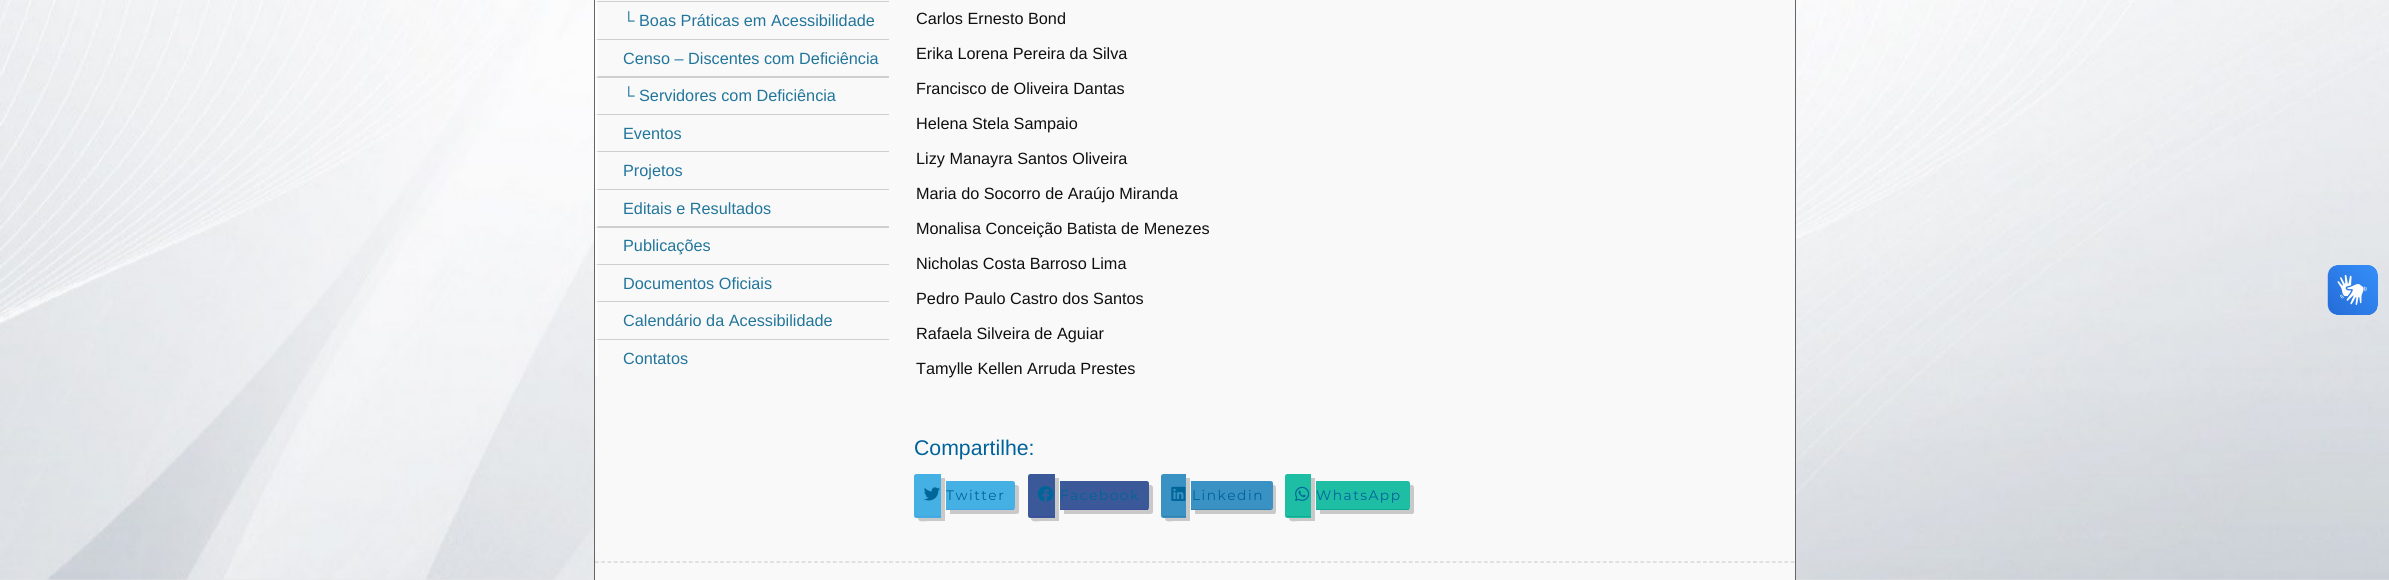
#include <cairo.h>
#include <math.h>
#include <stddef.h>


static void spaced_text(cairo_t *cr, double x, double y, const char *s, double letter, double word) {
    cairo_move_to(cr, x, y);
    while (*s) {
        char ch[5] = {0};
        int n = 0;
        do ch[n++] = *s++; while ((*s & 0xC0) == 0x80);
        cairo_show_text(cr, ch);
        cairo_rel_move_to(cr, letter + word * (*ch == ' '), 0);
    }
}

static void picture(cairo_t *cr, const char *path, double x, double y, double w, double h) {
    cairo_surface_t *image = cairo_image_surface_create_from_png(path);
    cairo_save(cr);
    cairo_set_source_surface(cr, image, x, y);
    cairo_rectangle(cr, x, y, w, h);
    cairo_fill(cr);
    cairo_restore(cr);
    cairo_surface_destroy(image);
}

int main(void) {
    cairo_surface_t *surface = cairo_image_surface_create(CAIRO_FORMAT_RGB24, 2389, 580);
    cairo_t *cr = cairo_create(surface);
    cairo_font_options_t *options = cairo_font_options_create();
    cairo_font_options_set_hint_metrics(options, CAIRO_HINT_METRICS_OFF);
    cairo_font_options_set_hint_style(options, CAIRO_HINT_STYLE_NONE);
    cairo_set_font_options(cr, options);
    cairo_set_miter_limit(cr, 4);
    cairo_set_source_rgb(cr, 0.898, 0.898, 0.898);
    cairo_paint(cr);
    picture(cr, "img1.png", 0, 0, 2389, 580);
    cairo_rectangle(cr, 594.5, -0.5, 1201, 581);
    cairo_set_source_rgb(cr, 0.396, 0.396, 0.396);
    cairo_set_line_width(cr, 1);
    cairo_stroke(cr);
    cairo_set_source_rgb(cr, 0.976, 0.976, 0.976);
    cairo_rectangle(cr, 595, 0, 1200, 580);
    cairo_fill(cr);
    cairo_set_source_rgb(cr, 0.812, 0.812, 0.812);
    cairo_new_path(cr);
    cairo_move_to(cr, 889, 2);
    cairo_line_to(cr, 595, 2);
    cairo_line_to(cr, 598, 1);
    cairo_line_to(cr, 889, 1);
    cairo_close_path(cr);
    cairo_fill(cr);
    cairo_set_source_rgb(cr, 1, 1, 1);
    cairo_new_path(cr);
    cairo_move_to(cr, 595, 2);
    cairo_line_to(cr, 595, -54);
    cairo_line_to(cr, 598, -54);
    cairo_line_to(cr, 598, 1);
    cairo_close_path(cr);
    cairo_fill(cr);
    cairo_set_source_rgb(cr, 0.812, 0.812, 0.812);
    cairo_new_path(cr);
    cairo_move_to(cr, 889, 40);
    cairo_line_to(cr, 595, 40);
    cairo_line_to(cr, 598, 39);
    cairo_line_to(cr, 889, 39);
    cairo_close_path(cr);
    cairo_fill(cr);
    cairo_set_source_rgb(cr, 1, 1, 1);
    cairo_new_path(cr);
    cairo_move_to(cr, 595, 40);
    cairo_line_to(cr, 595, 2.5);
    cairo_line_to(cr, 597.5, 2.5);
    cairo_line_to(cr, 597.5, 39);
    cairo_close_path(cr);
    cairo_fill(cr);
    cairo_select_font_face(cr, "Liberation Sans", CAIRO_FONT_SLANT_NORMAL, CAIRO_FONT_WEIGHT_NORMAL);
    cairo_set_font_size(cr, 16.25);
    cairo_set_source_rgb(cr, 0.129, 0.459, 0.608);
    cairo_move_to(cr, 623, 26);
    cairo_show_text(cr, "└ Boas Práticas em Acessibilidade");
    cairo_set_source_rgb(cr, 0.812, 0.812, 0.812);
    cairo_new_path(cr);
    cairo_move_to(cr, 889, 78);
    cairo_line_to(cr, 595, 78);
    cairo_line_to(cr, 598, 76);
    cairo_line_to(cr, 889, 76);
    cairo_close_path(cr);
    cairo_fill(cr);
    cairo_set_source_rgb(cr, 1, 1, 1);
    cairo_new_path(cr);
    cairo_move_to(cr, 595, 77.5);
    cairo_line_to(cr, 595, 40);
    cairo_line_to(cr, 597.5, 40);
    cairo_line_to(cr, 597.5, 76);
    cairo_close_path(cr);
    cairo_fill(cr);
    cairo_set_source_rgb(cr, 0.129, 0.459, 0.608);
    cairo_move_to(cr, 623, 64);
    cairo_show_text(cr, "Censo – Discentes com Deficiência");
    cairo_set_source_rgb(cr, 0.812, 0.812, 0.812);
    cairo_new_path(cr);
    cairo_move_to(cr, 889, 115);
    cairo_line_to(cr, 595, 115);
    cairo_line_to(cr, 598, 114);
    cairo_line_to(cr, 889, 114);
    cairo_close_path(cr);
    cairo_fill(cr);
    cairo_set_source_rgb(cr, 1, 1, 1);
    cairo_new_path(cr);
    cairo_move_to(cr, 595, 115);
    cairo_line_to(cr, 595, 77.5);
    cairo_line_to(cr, 597.5, 77.5);
    cairo_line_to(cr, 597.5, 114);
    cairo_close_path(cr);
    cairo_fill(cr);
    cairo_set_source_rgb(cr, 0.129, 0.459, 0.608);
    cairo_move_to(cr, 623, 101);
    cairo_show_text(cr, "└ Servidores com Deficiência");
    cairo_set_source_rgb(cr, 0.812, 0.812, 0.812);
    cairo_new_path(cr);
    cairo_move_to(cr, 889, 152);
    cairo_line_to(cr, 595, 152);
    cairo_line_to(cr, 598, 151);
    cairo_line_to(cr, 889, 151);
    cairo_close_path(cr);
    cairo_fill(cr);
    cairo_set_source_rgb(cr, 1, 1, 1);
    cairo_new_path(cr);
    cairo_move_to(cr, 595, 152.5);
    cairo_line_to(cr, 595, 115);
    cairo_line_to(cr, 597.5, 115);
    cairo_line_to(cr, 597.5, 151);
    cairo_close_path(cr);
    cairo_fill(cr);
    cairo_set_source_rgb(cr, 0.129, 0.459, 0.608);
    cairo_move_to(cr, 623, 139);
    cairo_show_text(cr, "Eventos");
    cairo_set_source_rgb(cr, 0.812, 0.812, 0.812);
    cairo_new_path(cr);
    cairo_move_to(cr, 889, 190);
    cairo_line_to(cr, 595, 190);
    cairo_line_to(cr, 598, 189);
    cairo_line_to(cr, 889, 189);
    cairo_close_path(cr);
    cairo_fill(cr);
    cairo_set_source_rgb(cr, 1, 1, 1);
    cairo_new_path(cr);
    cairo_move_to(cr, 595, 190);
    cairo_line_to(cr, 595, 152.5);
    cairo_line_to(cr, 597.5, 152.5);
    cairo_line_to(cr, 597.5, 189);
    cairo_close_path(cr);
    cairo_fill(cr);
    cairo_set_source_rgb(cr, 0.129, 0.459, 0.608);
    cairo_move_to(cr, 623, 176);
    cairo_show_text(cr, "Projetos");
    cairo_set_source_rgb(cr, 0.812, 0.812, 0.812);
    cairo_new_path(cr);
    cairo_move_to(cr, 889, 228);
    cairo_line_to(cr, 595, 228);
    cairo_line_to(cr, 598, 226);
    cairo_line_to(cr, 889, 226);
    cairo_close_path(cr);
    cairo_fill(cr);
    cairo_set_source_rgb(cr, 1, 1, 1);
    cairo_new_path(cr);
    cairo_move_to(cr, 595, 227.5);
    cairo_line_to(cr, 595, 190);
    cairo_line_to(cr, 597.5, 190);
    cairo_line_to(cr, 597.5, 226);
    cairo_close_path(cr);
    cairo_fill(cr);
    cairo_set_source_rgb(cr, 0.129, 0.459, 0.608);
    cairo_move_to(cr, 623, 214);
    cairo_show_text(cr, "Editais e Resultados");
    cairo_set_source_rgb(cr, 0.812, 0.812, 0.812);
    cairo_new_path(cr);
    cairo_move_to(cr, 889, 265);
    cairo_line_to(cr, 595, 265);
    cairo_line_to(cr, 598, 264);
    cairo_line_to(cr, 889, 264);
    cairo_close_path(cr);
    cairo_fill(cr);
    cairo_set_source_rgb(cr, 1, 1, 1);
    cairo_new_path(cr);
    cairo_move_to(cr, 595, 265);
    cairo_line_to(cr, 595, 227.5);
    cairo_line_to(cr, 597.5, 227.5);
    cairo_line_to(cr, 597.5, 264);
    cairo_close_path(cr);
    cairo_fill(cr);
    cairo_set_source_rgb(cr, 0.129, 0.459, 0.608);
    cairo_move_to(cr, 623, 251);
    cairo_show_text(cr, "Publicações");
    cairo_set_source_rgb(cr, 0.812, 0.812, 0.812);
    cairo_new_path(cr);
    cairo_move_to(cr, 889, 302);
    cairo_line_to(cr, 595, 302);
    cairo_line_to(cr, 598, 301);
    cairo_line_to(cr, 889, 301);
    cairo_close_path(cr);
    cairo_fill(cr);
    cairo_set_source_rgb(cr, 1, 1, 1);
    cairo_new_path(cr);
    cairo_move_to(cr, 595, 302.5);
    cairo_line_to(cr, 595, 265);
    cairo_line_to(cr, 597.5, 265);
    cairo_line_to(cr, 597.5, 301);
    cairo_close_path(cr);
    cairo_fill(cr);
    cairo_set_source_rgb(cr, 0.129, 0.459, 0.608);
    cairo_move_to(cr, 623, 289);
    cairo_show_text(cr, "Documentos Oficiais");
    cairo_set_source_rgb(cr, 0.812, 0.812, 0.812);
    cairo_new_path(cr);
    cairo_move_to(cr, 889, 340);
    cairo_line_to(cr, 595, 340);
    cairo_line_to(cr, 598, 339);
    cairo_line_to(cr, 889, 339);
    cairo_close_path(cr);
    cairo_fill(cr);
    cairo_set_source_rgb(cr, 1, 1, 1);
    cairo_new_path(cr);
    cairo_move_to(cr, 595, 340);
    cairo_line_to(cr, 595, 302.5);
    cairo_line_to(cr, 597.5, 302.5);
    cairo_line_to(cr, 597.5, 339);
    cairo_close_path(cr);
    cairo_fill(cr);
    cairo_set_source_rgb(cr, 0.129, 0.459, 0.608);
    cairo_move_to(cr, 623, 326);
    cairo_show_text(cr, "Calendário da Acessibilidade");
    cairo_set_source_rgb(cr, 1, 1, 1);
    cairo_rectangle(cr, 595, 340, 3, 36);
    cairo_fill(cr);
    cairo_set_source_rgb(cr, 0.129, 0.459, 0.608);
    cairo_move_to(cr, 623, 364);
    cairo_show_text(cr, "Contatos");
    cairo_set_source_rgb(cr, 0.059, 0.059, 0.059);
    cairo_move_to(cr, 916, 24);
    cairo_show_text(cr, "Carlos Ernesto Bond");
    cairo_move_to(cr, 916, 59);
    cairo_show_text(cr, "Erika Lorena Pereira da Silva");
    cairo_move_to(cr, 916, 94);
    cairo_show_text(cr, "Francisco de Oliveira Dantas");
    cairo_move_to(cr, 916, 129);
    cairo_show_text(cr, "Helena Stela Sampaio");
    cairo_move_to(cr, 916, 164);
    cairo_show_text(cr, "Lizy Manayra Santos Oliveira");
    cairo_move_to(cr, 916, 199);
    cairo_show_text(cr, "Maria do Socorro de Araújo Miranda");
    cairo_move_to(cr, 916, 234);
    cairo_show_text(cr, "Monalisa Conceição Batista de Menezes");
    cairo_move_to(cr, 916, 269);
    cairo_show_text(cr, "Nicholas Costa Barroso Lima");
    cairo_move_to(cr, 916, 304);
    cairo_show_text(cr, "Pedro Paulo Castro dos Santos");
    cairo_move_to(cr, 916, 339);
    cairo_show_text(cr, "Rafaela Silveira de Aguiar");
    cairo_move_to(cr, 916, 374);
    cairo_show_text(cr, "Tamylle Kellen Arruda Prestes");
    cairo_set_font_size(cr, 21.25);
    cairo_set_source_rgb(cr, 0, 0.384, 0.612);
    cairo_move_to(cr, 914, 455);
    cairo_show_text(cr, "Compartilhe:");
    cairo_set_source_rgb(cr, 0.788, 0.788, 0.788);
    cairo_new_path(cr);
    cairo_move_to(cr, 918, 518);
    cairo_curve_to(cr, 918, 523, 925, 521, 929, 521);
    cairo_line_to(cr, 945, 521);
    cairo_line_to(cr, 945, 478);
    cairo_line_to(cr, 941, 478);
    cairo_line_to(cr, 941, 518);
    cairo_close_path(cr);
    cairo_fill(cr);
    cairo_set_source_rgb(cr, 0.271, 0.69, 0.89);
    cairo_new_path(cr);
    cairo_move_to(cr, 916.5, 474);
    cairo_line_to(cr, 941, 474);
    cairo_line_to(cr, 941, 518);
    cairo_line_to(cr, 916.5, 518);
    cairo_curve_to(cr, 915, 518, 914, 517, 914, 515.5);
    cairo_line_to(cr, 914, 476.5);
    cairo_curve_to(cr, 914, 475, 915, 474, 916.5, 474);
    cairo_close_path(cr);
    cairo_fill(cr);
    cairo_set_source_rgb(cr, 0.271, 0.639, 0.89);
    cairo_rectangle(cr, 915, 516, 26, 1);
    cairo_fill(cr);
    cairo_set_source_rgb(cr, 0.788, 0.788, 0.788);
    cairo_new_path(cr);
    cairo_move_to(cr, 950, 510);
    cairo_line_to(cr, 950, 514);
    cairo_line_to(cr, 1016, 514);
    cairo_curve_to(cr, 1018, 514, 1019, 513, 1019, 512);
    cairo_line_to(cr, 1019, 488);
    cairo_curve_to(cr, 1019, 486, 1018, 485, 1016, 485);
    cairo_line_to(cr, 1015, 485);
    cairo_line_to(cr, 1015, 508);
    cairo_curve_to(cr, 1015, 509, 1014, 510, 1012, 510);
    cairo_close_path(cr);
    cairo_fill(cr);
    cairo_set_source_rgb(cr, 0.271, 0.69, 0.89);
    cairo_new_path(cr);
    cairo_move_to(cr, 946, 481);
    cairo_line_to(cr, 1012.5, 481);
    cairo_curve_to(cr, 1014, 481, 1015, 482, 1015, 483.5);
    cairo_line_to(cr, 1015, 507.5);
    cairo_curve_to(cr, 1015, 509, 1014, 510, 1012.5, 510);
    cairo_line_to(cr, 946, 510);
    cairo_close_path(cr);
    cairo_fill(cr);
    cairo_set_source_rgb(cr, 0.271, 0.639, 0.89);
    cairo_rectangle(cr, 946, 509, 68, 1);
    cairo_fill(cr);
    picture(cr, "img2.png", 924, 487, 16, 14);
    cairo_select_font_face(cr, "Montserrat", CAIRO_FONT_SLANT_NORMAL, CAIRO_FONT_WEIGHT_NORMAL);
    cairo_set_font_size(cr, 13.75);
    cairo_set_source_rgb(cr, 0, 0.384, 0.612);
    spaced_text(cr, 946, 500, "Twitter", 1.5, 0);
    cairo_set_source_rgb(cr, 0.788, 0.788, 0.788);
    cairo_new_path(cr);
    cairo_move_to(cr, 1031, 518);
    cairo_curve_to(cr, 1031, 523, 1038, 521, 1042, 521);
    cairo_line_to(cr, 1059, 521);
    cairo_line_to(cr, 1059, 478);
    cairo_line_to(cr, 1055, 478);
    cairo_line_to(cr, 1055, 518);
    cairo_close_path(cr);
    cairo_fill(cr);
    cairo_set_source_rgb(cr, 0.231, 0.349, 0.596);
    cairo_new_path(cr);
    cairo_move_to(cr, 1030.5, 474);
    cairo_line_to(cr, 1055, 474);
    cairo_line_to(cr, 1055, 518);
    cairo_line_to(cr, 1030.5, 518);
    cairo_curve_to(cr, 1029, 518, 1028, 517, 1028, 515.5);
    cairo_line_to(cr, 1028, 476.5);
    cairo_curve_to(cr, 1028, 475, 1029, 474, 1030.5, 474);
    cairo_close_path(cr);
    cairo_fill(cr);
    cairo_set_source_rgb(cr, 0.231, 0.298, 0.596);
    cairo_rectangle(cr, 1029, 516, 26, 1);
    cairo_fill(cr);
    cairo_set_source_rgb(cr, 0.788, 0.788, 0.788);
    cairo_new_path(cr);
    cairo_move_to(cr, 1064, 510);
    cairo_line_to(cr, 1064, 514);
    cairo_line_to(cr, 1150, 514);
    cairo_curve_to(cr, 1152, 514, 1153, 513, 1153, 512);
    cairo_line_to(cr, 1153, 488);
    cairo_curve_to(cr, 1153, 486, 1152, 485, 1150, 485);
    cairo_line_to(cr, 1149, 485);
    cairo_line_to(cr, 1149, 508);
    cairo_curve_to(cr, 1149, 509, 1148, 510, 1146, 510);
    cairo_close_path(cr);
    cairo_fill(cr);
    cairo_set_source_rgb(cr, 0.231, 0.349, 0.596);
    cairo_new_path(cr);
    cairo_move_to(cr, 1060, 481);
    cairo_line_to(cr, 1146.5, 481);
    cairo_curve_to(cr, 1148, 481, 1149, 482, 1149, 483.5);
    cairo_line_to(cr, 1149, 507.5);
    cairo_curve_to(cr, 1149, 509, 1148, 510, 1146.5, 510);
    cairo_line_to(cr, 1060, 510);
    cairo_close_path(cr);
    cairo_fill(cr);
    cairo_set_source_rgb(cr, 0.231, 0.298, 0.596);
    cairo_rectangle(cr, 1060, 509, 88, 1);
    cairo_fill(cr);
    picture(cr, "img3.png", 1037, 486, 17, 16);
    cairo_set_source_rgb(cr, 0, 0.384, 0.612);
    spaced_text(cr, 1060, 500, "Facebook", 1.5, 0);
    cairo_set_source_rgb(cr, 0.788, 0.788, 0.788);
    cairo_new_path(cr);
    cairo_move_to(cr, 1165, 518);
    cairo_curve_to(cr, 1165, 523, 1171, 521, 1175, 521);
    cairo_line_to(cr, 1190, 521);
    cairo_line_to(cr, 1190, 478);
    cairo_line_to(cr, 1186, 478);
    cairo_line_to(cr, 1186, 518);
    cairo_close_path(cr);
    cairo_fill(cr);
    cairo_set_source_rgb(cr, 0.227, 0.569, 0.765);
    cairo_new_path(cr);
    cairo_move_to(cr, 1163.5, 474);
    cairo_line_to(cr, 1186, 474);
    cairo_line_to(cr, 1186, 518);
    cairo_line_to(cr, 1163.5, 518);
    cairo_curve_to(cr, 1162, 518, 1161, 517, 1161, 515.5);
    cairo_line_to(cr, 1161, 476.5);
    cairo_curve_to(cr, 1161, 475, 1162, 474, 1163.5, 474);
    cairo_close_path(cr);
    cairo_fill(cr);
    cairo_set_source_rgb(cr, 0.196, 0.498, 0.675);
    cairo_rectangle(cr, 1163, 516, 23, 1);
    cairo_fill(cr);
    cairo_set_source_rgb(cr, 0.788, 0.788, 0.788);
    cairo_new_path(cr);
    cairo_move_to(cr, 1195, 510);
    cairo_line_to(cr, 1195, 514);
    cairo_line_to(cr, 1274, 514);
    cairo_curve_to(cr, 1275, 514, 1276, 513, 1276, 512);
    cairo_line_to(cr, 1276, 488);
    cairo_curve_to(cr, 1276, 486, 1275, 485, 1274, 485);
    cairo_line_to(cr, 1272, 485);
    cairo_line_to(cr, 1272, 508);
    cairo_curve_to(cr, 1272, 509, 1271, 510, 1270, 510);
    cairo_close_path(cr);
    cairo_fill(cr);
    cairo_set_source_rgb(cr, 0.227, 0.569, 0.765);
    cairo_new_path(cr);
    cairo_move_to(cr, 1191, 481);
    cairo_line_to(cr, 1270.5, 481);
    cairo_curve_to(cr, 1272, 481, 1273, 482, 1273, 483.5);
    cairo_line_to(cr, 1273, 507.5);
    cairo_curve_to(cr, 1273, 509, 1272, 510, 1270.5, 510);
    cairo_line_to(cr, 1191, 510);
    cairo_close_path(cr);
    cairo_fill(cr);
    cairo_set_source_rgb(cr, 0.196, 0.498, 0.675);
    cairo_rectangle(cr, 1191, 509, 80, 1);
    cairo_fill(cr);
    picture(cr, "img4.png", 1171, 486, 15, 15);
    cairo_set_source_rgb(cr, 0, 0.384, 0.612);
    spaced_text(cr, 1192, 500, "Linkedin", 1.5, 0);
    cairo_set_source_rgb(cr, 0.788, 0.788, 0.788);
    cairo_new_path(cr);
    cairo_move_to(cr, 1289, 518);
    cairo_curve_to(cr, 1289, 523, 1295, 521, 1299, 521);
    cairo_line_to(cr, 1315, 521);
    cairo_line_to(cr, 1315, 478);
    cairo_line_to(cr, 1311, 478);
    cairo_line_to(cr, 1311, 518);
    cairo_close_path(cr);
    cairo_fill(cr);
    cairo_set_source_rgb(cr, 0.118, 0.745, 0.647);
    cairo_new_path(cr);
    cairo_move_to(cr, 1287.5, 474);
    cairo_line_to(cr, 1311, 474);
    cairo_line_to(cr, 1311, 518);
    cairo_line_to(cr, 1287.5, 518);
    cairo_curve_to(cr, 1286, 518, 1285, 517, 1285, 515.5);
    cairo_line_to(cr, 1285, 476.5);
    cairo_curve_to(cr, 1285, 475, 1286, 474, 1287.5, 474);
    cairo_close_path(cr);
    cairo_fill(cr);
    cairo_set_source_rgb(cr, 0.059, 0.671, 0.573);
    cairo_rectangle(cr, 1286, 516, 25, 1);
    cairo_fill(cr);
    cairo_set_source_rgb(cr, 0.788, 0.788, 0.788);
    cairo_new_path(cr);
    cairo_move_to(cr, 1320, 510);
    cairo_line_to(cr, 1320, 514);
    cairo_line_to(cr, 1412, 514);
    cairo_curve_to(cr, 1413, 514, 1414, 513, 1414, 512);
    cairo_line_to(cr, 1414, 488);
    cairo_curve_to(cr, 1414, 486, 1413, 485, 1412, 485);
    cairo_line_to(cr, 1410, 485);
    cairo_line_to(cr, 1410, 508);
    cairo_curve_to(cr, 1410, 509, 1409, 510, 1408, 510);
    cairo_close_path(cr);
    cairo_fill(cr);
    cairo_set_source_rgb(cr, 0.118, 0.745, 0.647);
    cairo_new_path(cr);
    cairo_move_to(cr, 1316, 481);
    cairo_line_to(cr, 1407.5, 481);
    cairo_curve_to(cr, 1409, 481, 1410, 482, 1410, 483.5);
    cairo_line_to(cr, 1410, 507.5);
    cairo_curve_to(cr, 1410, 509, 1409, 510, 1407.5, 510);
    cairo_line_to(cr, 1316, 510);
    cairo_close_path(cr);
    cairo_fill(cr);
    cairo_set_source_rgb(cr, 0.059, 0.671, 0.573);
    cairo_rectangle(cr, 1316, 509, 93, 1);
    cairo_fill(cr);
    picture(cr, "img5.png", 1295, 486, 15, 15);
    cairo_set_source_rgb(cr, 0, 0.384, 0.612);
    spaced_text(cr, 1316, 500, "WhatsApp", 1.5, 0);
    cairo_new_path(cr);
    cairo_move_to(cr, 595, 562);
    cairo_line_to(cr, 1795, 562);
    cairo_set_source_rgb(cr, 0.812, 0.812, 0.812);
    cairo_set_line_width(cr, 1.2);
    cairo_set_dash(cr, (double[]){3.75, 2.51}, 2, 0);
    cairo_stroke(cr);
    picture(cr, "img6.png", 2327, 265, 51, 50);
    picture(cr, "img7.png", 2328, 265, 50, 50);
    cairo_surface_write_to_png(surface, "page.png");
    cairo_font_options_destroy(options);
    cairo_destroy(cr);
    cairo_surface_destroy(surface);
    return 0;
}
